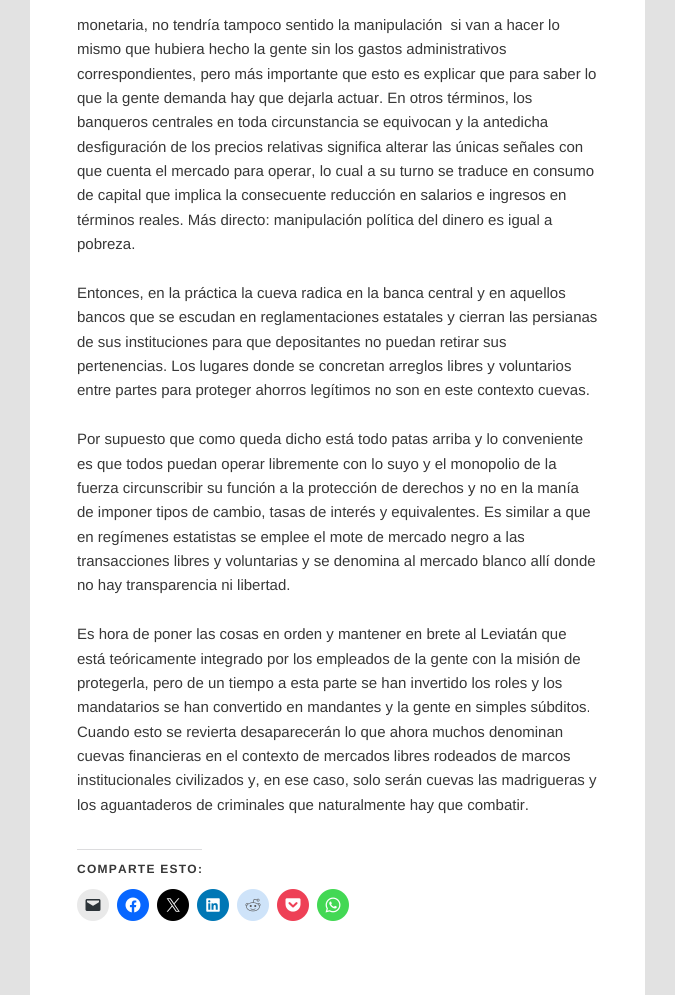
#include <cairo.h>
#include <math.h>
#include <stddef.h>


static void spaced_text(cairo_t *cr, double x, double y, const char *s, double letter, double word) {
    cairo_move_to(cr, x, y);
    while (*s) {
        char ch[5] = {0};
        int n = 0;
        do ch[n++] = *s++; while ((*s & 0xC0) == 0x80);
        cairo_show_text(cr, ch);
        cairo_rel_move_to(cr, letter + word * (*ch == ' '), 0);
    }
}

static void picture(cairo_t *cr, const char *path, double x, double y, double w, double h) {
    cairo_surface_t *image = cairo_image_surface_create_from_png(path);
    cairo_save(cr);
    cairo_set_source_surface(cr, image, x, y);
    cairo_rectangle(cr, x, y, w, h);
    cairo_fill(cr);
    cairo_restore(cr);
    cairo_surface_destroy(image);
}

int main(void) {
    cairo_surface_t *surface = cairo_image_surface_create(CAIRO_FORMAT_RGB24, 675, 995);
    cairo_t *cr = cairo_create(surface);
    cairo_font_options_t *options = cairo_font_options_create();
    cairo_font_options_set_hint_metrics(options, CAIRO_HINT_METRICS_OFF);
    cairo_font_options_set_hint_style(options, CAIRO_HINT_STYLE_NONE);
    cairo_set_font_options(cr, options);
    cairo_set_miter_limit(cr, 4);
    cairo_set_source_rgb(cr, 0.886, 0.886, 0.886);
    cairo_paint(cr);
    cairo_set_source_rgb(cr, 1, 1, 1);
    cairo_rectangle(cr, 30, 0, 615, 995);
    cairo_fill(cr);
    cairo_select_font_face(cr, "Liberation Sans", CAIRO_FONT_SLANT_NORMAL, CAIRO_FONT_WEIGHT_NORMAL);
    cairo_set_font_size(cr, 15);
    cairo_set_source_rgb(cr, 0.216, 0.216, 0.216);
    cairo_move_to(cr, 77, 30);
    cairo_show_text(cr, "monetaria, no tendría tampoco sentido la manipulación  si van a hacer lo");
    cairo_move_to(cr, 77, 54);
    cairo_show_text(cr, "mismo que hubiera hecho la gente sin los gastos administrativos");
    cairo_move_to(cr, 77, 79);
    cairo_show_text(cr, "correspondientes, pero más importante que esto es explicar que para saber lo");
    cairo_move_to(cr, 77, 103);
    cairo_show_text(cr, "que la gente demanda hay que dejarla actuar. En otros términos, los");
    cairo_move_to(cr, 77, 127);
    cairo_show_text(cr, "banqueros centrales en toda circunstancia se equivocan y la antedicha");
    cairo_move_to(cr, 77, 152);
    cairo_show_text(cr, "desfiguración de los precios relativas significa alterar las únicas señales con");
    cairo_move_to(cr, 77, 176);
    cairo_show_text(cr, "que cuenta el mercado para operar, lo cual a su turno se traduce en consumo");
    cairo_move_to(cr, 77, 200);
    cairo_show_text(cr, "de capital que implica la consecuente reducción en salarios e ingresos en");
    cairo_move_to(cr, 77, 225);
    cairo_show_text(cr, "términos reales. Más directo: manipulación política del dinero es igual a");
    cairo_move_to(cr, 77, 249);
    cairo_show_text(cr, "pobreza.");
    cairo_move_to(cr, 77, 298);
    cairo_show_text(cr, "Entonces, en la práctica la cueva radica en la banca central y en aquellos");
    cairo_move_to(cr, 77, 322);
    cairo_show_text(cr, "bancos que se escudan en reglamentaciones estatales y cierran las persianas");
    cairo_move_to(cr, 77, 347);
    cairo_show_text(cr, "de sus instituciones para que depositantes no puedan retirar sus");
    cairo_move_to(cr, 77, 371);
    cairo_show_text(cr, "pertenencias. Los lugares donde se concretan arreglos libres y voluntarios");
    cairo_move_to(cr, 77, 395);
    cairo_show_text(cr, "entre partes para proteger ahorros legítimos no son en este contexto cuevas.");
    cairo_move_to(cr, 77, 444);
    cairo_show_text(cr, "Por supuesto que como queda dicho está todo patas arriba y lo conveniente");
    cairo_move_to(cr, 77, 469);
    cairo_show_text(cr, "es que todos puedan operar libremente con lo suyo y el monopolio de la");
    cairo_move_to(cr, 77, 493);
    cairo_show_text(cr, "fuerza circunscribir su función a la protección de derechos y no en la manía");
    cairo_move_to(cr, 77, 517);
    cairo_show_text(cr, "de imponer tipos de cambio, tasas de interés y equivalentes. Es similar a que");
    cairo_move_to(cr, 77, 542);
    cairo_show_text(cr, "en regímenes estatistas se emplee el mote de mercado negro a las");
    cairo_move_to(cr, 77, 566);
    cairo_show_text(cr, "transacciones libres y voluntarias y se denomina al mercado blanco allí donde");
    cairo_move_to(cr, 77, 590);
    cairo_show_text(cr, "no hay transparencia ni libertad.");
    cairo_move_to(cr, 77, 639);
    cairo_show_text(cr, "Es hora de poner las cosas en orden y mantener en brete al Leviatán que");
    cairo_move_to(cr, 77, 664);
    cairo_show_text(cr, "está teóricamente integrado por los empleados de la gente con la misión de");
    cairo_move_to(cr, 77, 688);
    cairo_show_text(cr, "protegerla, pero de un tiempo a esta parte se han invertido los roles y los");
    cairo_move_to(cr, 77, 712);
    cairo_show_text(cr, "mandatarios se han convertido en mandantes y la gente en simples súbditos.");
    cairo_move_to(cr, 77, 737);
    cairo_show_text(cr, "Cuando esto se revierta desaparecerán lo que ahora muchos denominan");
    cairo_move_to(cr, 77, 761);
    cairo_show_text(cr, "cuevas financieras en el contexto de mercados libres rodeados de marcos");
    cairo_move_to(cr, 77, 785);
    cairo_show_text(cr, "institucionales civilizados y, en ese caso, solo serán cuevas las madrigueras y");
    cairo_move_to(cr, 77, 810);
    cairo_show_text(cr, "los aguantaderos de criminales que naturalmente hay que combatir.");
    cairo_set_source_rgb(cr, 0.863, 0.863, 0.871);
    cairo_rectangle(cr, 77, 849, 125, 1);
    cairo_fill(cr);
    cairo_select_font_face(cr, "Liberation Sans", CAIRO_FONT_SLANT_NORMAL, CAIRO_FONT_WEIGHT_BOLD);
    cairo_set_font_size(cr, 12);
    cairo_set_source_rgb(cr, 0.216, 0.216, 0.216);
    spaced_text(cr, 77, 873, "COMPARTE ESTO:", 1.25, 0);
    cairo_set_source_rgb(cr, 0.914, 0.914, 0.914);
    cairo_new_path(cr);
    cairo_arc(cr, 93, 905, 16, 0, 2 * M_PI);
    cairo_fill(cr);
    picture(cr, "img1.png", 85, 899, 16, 12);
    cairo_set_source_rgb(cr, 0.031, 0.4, 1);
    cairo_arc(cr, 133, 905, 16, 0, 2 * M_PI);
    cairo_fill(cr);
    picture(cr, "img2.png", 125, 897, 16, 16);
    cairo_set_source_rgb(cr, 0, 0, 0);
    cairo_arc(cr, 173, 905, 16, 0, 2 * M_PI);
    cairo_fill(cr);
    picture(cr, "img3.png", 166, 898, 14, 14);
    cairo_set_source_rgb(cr, 0, 0.467, 0.71);
    cairo_arc(cr, 213, 905, 16, 0, 2 * M_PI);
    cairo_fill(cr);
    picture(cr, "img4.png", 206, 898, 14, 14);
    cairo_set_source_rgb(cr, 0.808, 0.89, 0.973);
    cairo_arc(cr, 253, 905, 16, 0, 2 * M_PI);
    cairo_fill(cr);
    picture(cr, "img5.png", 245, 898, 16, 14);
    cairo_set_source_rgb(cr, 0.933, 0.251, 0.337);
    cairo_arc(cr, 293, 905, 16, 0, 2 * M_PI);
    cairo_fill(cr);
    picture(cr, "img6.png", 285, 898, 16, 14);
    cairo_set_source_rgb(cr, 0.263, 0.847, 0.329);
    cairo_arc(cr, 333, 905, 16, 0, 2 * M_PI);
    cairo_fill(cr);
    picture(cr, "img7.png", 325, 897, 16, 16);
    cairo_surface_write_to_png(surface, "page.png");
    cairo_font_options_destroy(options);
    cairo_destroy(cr);
    cairo_surface_destroy(surface);
    return 0;
}
